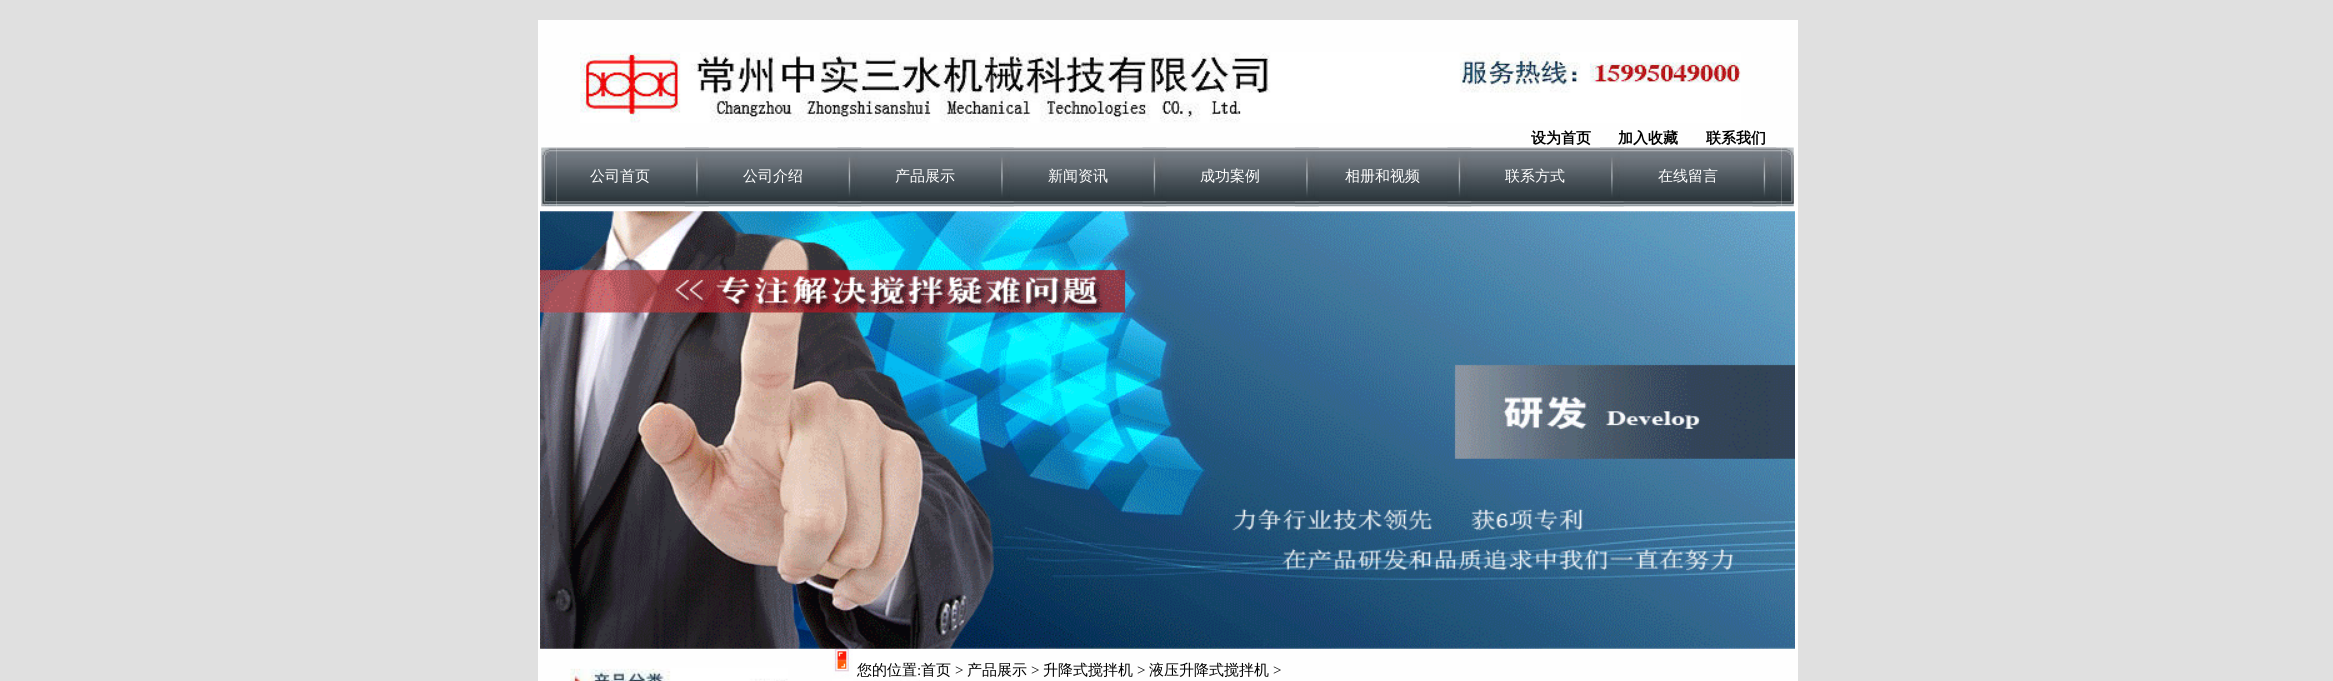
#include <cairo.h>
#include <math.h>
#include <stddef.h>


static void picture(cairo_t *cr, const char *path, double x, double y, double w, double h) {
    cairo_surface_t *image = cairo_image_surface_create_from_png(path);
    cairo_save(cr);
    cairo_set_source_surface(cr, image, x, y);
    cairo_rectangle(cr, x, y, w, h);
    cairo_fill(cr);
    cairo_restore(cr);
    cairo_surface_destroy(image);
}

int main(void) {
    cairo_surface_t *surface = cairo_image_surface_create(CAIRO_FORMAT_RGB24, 2333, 681);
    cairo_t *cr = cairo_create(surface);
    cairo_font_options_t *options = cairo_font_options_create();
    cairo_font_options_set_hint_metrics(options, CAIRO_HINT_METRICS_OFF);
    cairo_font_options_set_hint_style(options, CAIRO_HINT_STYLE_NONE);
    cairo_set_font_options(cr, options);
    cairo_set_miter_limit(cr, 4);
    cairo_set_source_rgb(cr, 0.878, 0.878, 0.878);
    cairo_paint(cr);
    cairo_set_source_rgb(cr, 0.996, 0.996, 0.996);
    cairo_rectangle(cr, 538, 20, 1260, 661);
    cairo_fill(cr);
    picture(cr, "img1.png", 580, 52, 1161, 71);
    cairo_select_font_face(cr, "WenQuanYi Zen Hei", CAIRO_FONT_SLANT_NORMAL, CAIRO_FONT_WEIGHT_BOLD);
    cairo_set_font_size(cr, 15);
    cairo_set_source_rgb(cr, 0, 0, 0);
    cairo_move_to(cr, 1531, 143);
    cairo_show_text(cr, "设为首页");
    cairo_move_to(cr, 1618, 143);
    cairo_show_text(cr, "加入收藏");
    cairo_move_to(cr, 1706, 143);
    cairo_show_text(cr, "联系我们");
    picture(cr, "img2.png", 541, 147, 16, 60);
    picture(cr, "img3.png", 556, 147, 1226, 60);
    picture(cr, "img4.png", 685, 147, 24, 60);
    cairo_select_font_face(cr, "WenQuanYi Zen Hei Medium", CAIRO_FONT_SLANT_NORMAL, CAIRO_FONT_WEIGHT_NORMAL);
    cairo_set_source_rgb(cr, 1, 1, 1);
    cairo_move_to(cr, 590, 181);
    cairo_show_text(cr, "公司首页");
    picture(cr, "img5.png", 837, 147, 25, 60);
    cairo_move_to(cr, 743, 181);
    cairo_show_text(cr, "公司介绍");
    picture(cr, "img4.png", 990, 147, 24, 60);
    cairo_move_to(cr, 895, 181);
    cairo_show_text(cr, "产品展示");
    picture(cr, "img6.png", 1142, 147, 25, 60);
    cairo_move_to(cr, 1048, 181);
    cairo_show_text(cr, "新闻资讯");
    picture(cr, "img4.png", 1295, 147, 24, 60);
    cairo_move_to(cr, 1200, 181);
    cairo_show_text(cr, "成功案例");
    picture(cr, "img7.png", 1447, 147, 25, 60);
    cairo_move_to(cr, 1345, 181);
    cairo_show_text(cr, "相册和视频");
    picture(cr, "img8.png", 1600, 147, 24, 60);
    cairo_move_to(cr, 1505, 181);
    cairo_show_text(cr, "联系方式");
    picture(cr, "img7.png", 1752, 147, 25, 60);
    cairo_move_to(cr, 1658, 181);
    cairo_show_text(cr, "在线留言");
    picture(cr, "img9.png", 1781, 147, 13, 60);
    picture(cr, "img12.png", 832, 648, 88, 33);
    picture(cr, "img10.png", 540, 211, 1255, 438);
    picture(cr, "img11.png", 570, 668, 218, 13);
    cairo_set_source_rgb(cr, 0, 0, 0);
    cairo_move_to(cr, 857, 675);
    cairo_show_text(cr, "您的位置");
    cairo_select_font_face(cr, "Liberation Serif", CAIRO_FONT_SLANT_NORMAL, CAIRO_FONT_WEIGHT_NORMAL);
    cairo_move_to(cr, 917, 675);
    cairo_show_text(cr, ":");
    cairo_select_font_face(cr, "WenQuanYi Zen Hei Medium", CAIRO_FONT_SLANT_NORMAL, CAIRO_FONT_WEIGHT_NORMAL);
    cairo_move_to(cr, 921, 675);
    cairo_show_text(cr, "首页");
    cairo_select_font_face(cr, "Liberation Serif", CAIRO_FONT_SLANT_NORMAL, CAIRO_FONT_WEIGHT_NORMAL);
    cairo_move_to(cr, 955, 675);
    cairo_show_text(cr, ">");
    cairo_select_font_face(cr, "WenQuanYi Zen Hei Medium", CAIRO_FONT_SLANT_NORMAL, CAIRO_FONT_WEIGHT_NORMAL);
    cairo_move_to(cr, 967, 675);
    cairo_show_text(cr, "产品展示");
    cairo_select_font_face(cr, "Liberation Serif", CAIRO_FONT_SLANT_NORMAL, CAIRO_FONT_WEIGHT_NORMAL);
    cairo_move_to(cr, 1031, 675);
    cairo_show_text(cr, ">");
    cairo_select_font_face(cr, "WenQuanYi Zen Hei Medium", CAIRO_FONT_SLANT_NORMAL, CAIRO_FONT_WEIGHT_NORMAL);
    cairo_move_to(cr, 1043, 675);
    cairo_show_text(cr, "升降式搅拌机");
    cairo_select_font_face(cr, "Liberation Serif", CAIRO_FONT_SLANT_NORMAL, CAIRO_FONT_WEIGHT_NORMAL);
    cairo_move_to(cr, 1137, 675);
    cairo_show_text(cr, ">");
    cairo_select_font_face(cr, "WenQuanYi Zen Hei Medium", CAIRO_FONT_SLANT_NORMAL, CAIRO_FONT_WEIGHT_NORMAL);
    cairo_move_to(cr, 1149, 675);
    cairo_show_text(cr, "液压升降式搅拌机");
    cairo_select_font_face(cr, "Liberation Serif", CAIRO_FONT_SLANT_NORMAL, CAIRO_FONT_WEIGHT_NORMAL);
    cairo_move_to(cr, 1273, 675);
    cairo_show_text(cr, ">");
    cairo_surface_write_to_png(surface, "page.png");
    cairo_font_options_destroy(options);
    cairo_destroy(cr);
    cairo_surface_destroy(surface);
    return 0;
}
